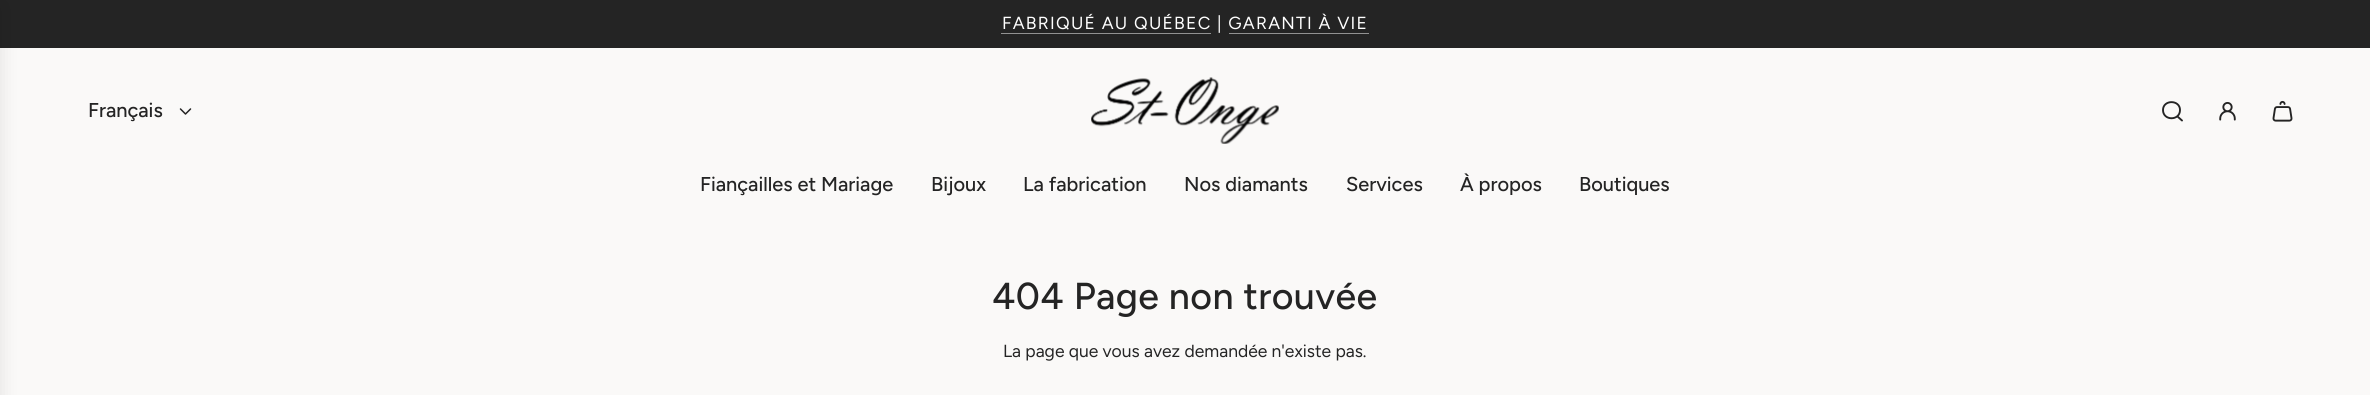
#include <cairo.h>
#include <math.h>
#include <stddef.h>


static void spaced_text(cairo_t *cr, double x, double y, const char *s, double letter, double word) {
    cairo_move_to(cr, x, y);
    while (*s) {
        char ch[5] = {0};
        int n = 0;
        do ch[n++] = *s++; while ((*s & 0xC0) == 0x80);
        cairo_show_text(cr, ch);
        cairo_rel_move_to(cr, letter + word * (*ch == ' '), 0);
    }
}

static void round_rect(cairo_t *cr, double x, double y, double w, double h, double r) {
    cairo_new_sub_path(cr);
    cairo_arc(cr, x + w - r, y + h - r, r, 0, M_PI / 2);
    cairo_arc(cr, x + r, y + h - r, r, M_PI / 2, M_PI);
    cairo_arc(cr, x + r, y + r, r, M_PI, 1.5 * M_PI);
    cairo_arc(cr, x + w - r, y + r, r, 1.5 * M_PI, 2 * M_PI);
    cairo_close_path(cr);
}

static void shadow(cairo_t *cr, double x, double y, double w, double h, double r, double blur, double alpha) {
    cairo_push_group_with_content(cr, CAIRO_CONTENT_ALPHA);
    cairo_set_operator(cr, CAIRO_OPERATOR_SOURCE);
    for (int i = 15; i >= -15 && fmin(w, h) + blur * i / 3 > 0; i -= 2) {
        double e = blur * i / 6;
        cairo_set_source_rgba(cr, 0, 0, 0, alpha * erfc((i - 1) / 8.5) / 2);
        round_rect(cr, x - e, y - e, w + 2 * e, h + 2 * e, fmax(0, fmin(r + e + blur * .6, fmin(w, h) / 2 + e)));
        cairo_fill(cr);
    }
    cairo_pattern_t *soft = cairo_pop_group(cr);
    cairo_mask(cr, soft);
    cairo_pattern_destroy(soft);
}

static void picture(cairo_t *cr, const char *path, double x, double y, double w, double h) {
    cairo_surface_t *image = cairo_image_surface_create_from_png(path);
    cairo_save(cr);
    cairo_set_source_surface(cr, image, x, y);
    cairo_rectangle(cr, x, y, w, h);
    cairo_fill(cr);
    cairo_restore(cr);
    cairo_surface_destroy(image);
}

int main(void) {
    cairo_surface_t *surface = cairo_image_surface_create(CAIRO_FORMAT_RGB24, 2370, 395);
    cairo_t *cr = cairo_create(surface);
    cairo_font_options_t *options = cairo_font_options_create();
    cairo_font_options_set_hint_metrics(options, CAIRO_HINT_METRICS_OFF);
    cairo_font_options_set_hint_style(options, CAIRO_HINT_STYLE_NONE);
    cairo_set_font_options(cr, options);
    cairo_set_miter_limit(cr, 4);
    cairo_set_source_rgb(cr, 0.98, 0.973, 0.969);
    cairo_paint(cr);
    cairo_set_source_rgb(cr, 0.141, 0.141, 0.141);
    cairo_rectangle(cr, 0, 0, 2370, 48);
    cairo_fill(cr);
    cairo_select_font_face(cr, "Figtree", CAIRO_FONT_SLANT_NORMAL, CAIRO_FONT_WEIGHT_NORMAL);
    cairo_set_font_size(cr, 17.5);
    cairo_set_source_rgb(cr, 1, 1, 1);
    spaced_text(cr, 1002, 29, "FABRIQUÉ AU QUÉBEC", 1.25, 0);
    cairo_set_source_rgb(cr, 0.573, 0.573, 0.573);
    cairo_rectangle(cr, 1001, 33, 210, 1);
    cairo_fill(cr);
    cairo_set_source_rgb(cr, 1, 1, 1);
    spaced_text(cr, 1217, 29, "| GARANTI À VIE", 1.25, 0);
    cairo_set_source_rgb(cr, 0.573, 0.573, 0.573);
    cairo_rectangle(cr, 1229, 33, 140, 1);
    cairo_fill(cr);
    cairo_set_source_rgb(cr, 0, 0, 0);
    shadow(cr, -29, 6, 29, 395, 0, 9.5, 0.1);
    cairo_select_font_face(cr, "Figtree Medium", CAIRO_FONT_SLANT_NORMAL, CAIRO_FONT_WEIGHT_NORMAL);
    cairo_set_font_size(cr, 20);
    cairo_set_source_rgb(cr, 0.141, 0.141, 0.141);
    cairo_move_to(cr, 88, 117);
    cairo_show_text(cr, "Français");
    cairo_new_path(cr);
    cairo_move_to(cr, 180.5, 109);
    cairo_line_to(cr, 185.5, 114);
    cairo_line_to(cr, 190.5, 109);
    cairo_set_line_width(cr, 1.5);
    cairo_set_line_cap(cr, CAIRO_LINE_CAP_ROUND);
    cairo_set_line_join(cr, CAIRO_LINE_JOIN_ROUND);
    cairo_stroke(cr);
    picture(cr, "img1.png", 1091, 77, 188, 67);
    cairo_new_path(cr);
    cairo_move_to(cr, 2177.5, 116.5);
    cairo_line_to(cr, 2182, 120.5);
    cairo_move_to(cr, 2163, 110);
    cairo_curve_to(cr, 2163, 121, 2180, 121, 2180, 110);
    cairo_curve_to(cr, 2180, 99.5, 2163, 99.5, 2163, 110);
    cairo_close_path(cr);
    cairo_set_line_width(cr, 1.9);
    cairo_stroke(cr);
    picture(cr, "img2.png", 2219, 102, 17, 19);
    picture(cr, "img3.png", 2272, 100, 21, 22);
    cairo_move_to(cr, 700, 191);
    cairo_show_text(cr, "Fiançailles et Mariage");
    cairo_move_to(cr, 931, 191);
    cairo_show_text(cr, "Bijoux");
    cairo_move_to(cr, 1023, 191);
    cairo_show_text(cr, "La fabrication");
    cairo_move_to(cr, 1184, 191);
    cairo_show_text(cr, "Nos diamants");
    cairo_move_to(cr, 1346, 191);
    cairo_show_text(cr, "Services");
    cairo_move_to(cr, 1460, 191);
    cairo_show_text(cr, "À propos");
    cairo_move_to(cr, 1579, 191);
    cairo_show_text(cr, "Boutiques");
    cairo_set_font_size(cr, 37.5);
    spaced_text(cr, 992, 309, "404 Page non trouvée", 0.4, 0);
    cairo_select_font_face(cr, "Figtree", CAIRO_FONT_SLANT_NORMAL, CAIRO_FONT_WEIGHT_NORMAL);
    cairo_set_font_size(cr, 17.5);
    cairo_move_to(cr, 1003, 357);
    cairo_show_text(cr, "La page que vous avez demandée n'existe pas.");
    cairo_surface_write_to_png(surface, "page.png");
    cairo_font_options_destroy(options);
    cairo_destroy(cr);
    cairo_surface_destroy(surface);
    return 0;
}
